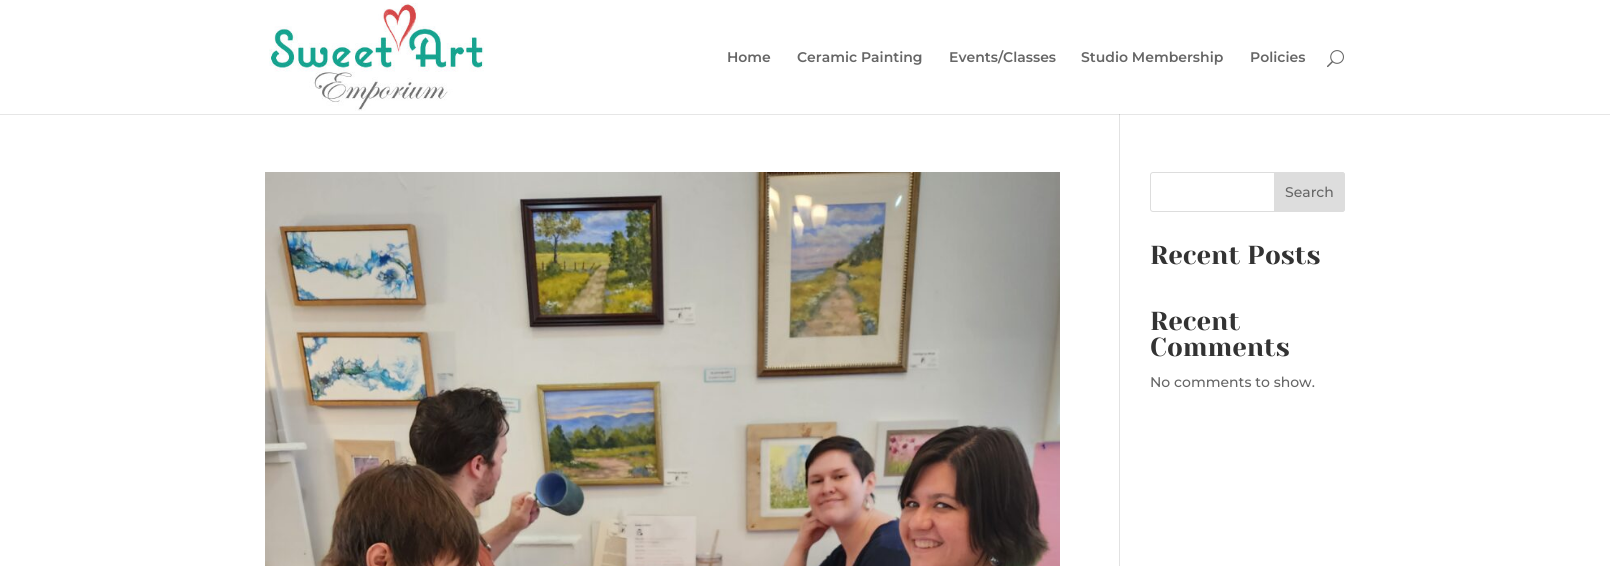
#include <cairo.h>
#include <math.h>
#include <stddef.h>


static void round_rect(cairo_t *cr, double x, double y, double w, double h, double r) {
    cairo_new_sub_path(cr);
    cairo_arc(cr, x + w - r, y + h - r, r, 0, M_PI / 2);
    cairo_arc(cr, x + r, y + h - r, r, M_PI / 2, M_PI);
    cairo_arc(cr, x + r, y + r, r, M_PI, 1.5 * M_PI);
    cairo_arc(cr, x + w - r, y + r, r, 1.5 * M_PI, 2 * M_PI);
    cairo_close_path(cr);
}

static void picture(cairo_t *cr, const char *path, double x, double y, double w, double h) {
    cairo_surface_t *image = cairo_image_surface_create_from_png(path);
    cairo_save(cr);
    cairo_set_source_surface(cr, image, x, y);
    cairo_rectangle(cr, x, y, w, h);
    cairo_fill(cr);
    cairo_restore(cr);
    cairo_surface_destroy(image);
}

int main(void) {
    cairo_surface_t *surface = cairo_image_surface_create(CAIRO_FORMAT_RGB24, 1610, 566);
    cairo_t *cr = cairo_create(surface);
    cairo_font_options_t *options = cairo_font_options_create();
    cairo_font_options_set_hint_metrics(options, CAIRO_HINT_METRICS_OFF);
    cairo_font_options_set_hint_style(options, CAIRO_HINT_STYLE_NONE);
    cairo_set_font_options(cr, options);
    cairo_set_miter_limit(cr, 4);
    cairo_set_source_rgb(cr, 1, 1, 1);
    cairo_paint(cr);
    cairo_set_source_rgb(cr, 0.902, 0.902, 0.902);
    cairo_rectangle(cr, 0, 114, 1610, 1);
    cairo_fill(cr);
    picture(cr, "img1.png", 269, 3, 215, 108);
    cairo_select_font_face(cr, "Montserrat SemiBold", CAIRO_FONT_SLANT_NORMAL, CAIRO_FONT_WEIGHT_NORMAL);
    cairo_set_font_size(cr, 14);
    cairo_set_source_rgb(cr, 0.4, 0.4, 0.4);
    cairo_move_to(cr, 727, 62);
    cairo_show_text(cr, "Home");
    cairo_move_to(cr, 797, 62);
    cairo_show_text(cr, "Ceramic Painting");
    cairo_move_to(cr, 949, 62);
    cairo_show_text(cr, "Events/Classes");
    cairo_move_to(cr, 1081, 62);
    cairo_show_text(cr, "Studio Membership");
    cairo_move_to(cr, 1250, 62);
    cairo_show_text(cr, "Policies");
    picture(cr, "img2.png", 1327, 50, 17, 18);
    cairo_set_source_rgb(cr, 0.886, 0.886, 0.886);
    cairo_rectangle(cr, 1119, 114, 1, 452);
    cairo_fill(cr);
    cairo_set_source_rgb(cr, 0.796, 0.796, 0.796);
    cairo_rectangle(cr, 1119, 114, 1, 1);
    cairo_fill(cr);
    picture(cr, "img3.png", 265, 172, 795, 394);
    round_rect(cr, 1150.5, 172.5, 194, 39, 2.5);
    cairo_set_source_rgb(cr, 0.867, 0.867, 0.867);
    cairo_set_line_width(cr, 1);
    cairo_stroke(cr);
    cairo_new_path(cr);
    cairo_move_to(cr, 1274.5, 172.5);
    cairo_line_to(cr, 1342, 172.5);
    cairo_curve_to(cr, 1343.5, 172.5, 1344.5, 173.5, 1344.5, 175);
    cairo_line_to(cr, 1344.5, 209);
    cairo_curve_to(cr, 1344.5, 210.5, 1343.5, 211.5, 1342, 211.5);
    cairo_line_to(cr, 1274.5, 211.5);
    cairo_close_path(cr);
    cairo_fill_preserve(cr);
    cairo_stroke(cr);
    cairo_select_font_face(cr, "Montserrat Medium", CAIRO_FONT_SLANT_NORMAL, CAIRO_FONT_WEIGHT_NORMAL);
    cairo_set_source_rgb(cr, 0.4, 0.4, 0.4);
    cairo_move_to(cr, 1285, 197);
    cairo_show_text(cr, "Search");
    cairo_select_font_face(cr, "Yeseva One", CAIRO_FONT_SLANT_NORMAL, CAIRO_FONT_WEIGHT_NORMAL);
    cairo_set_font_size(cr, 26);
    cairo_set_source_rgb(cr, 0.2, 0.2, 0.2);
    cairo_move_to(cr, 1150, 264);
    cairo_show_text(cr, "Recent Posts");
    cairo_move_to(cr, 1150, 330);
    cairo_show_text(cr, "Recent");
    cairo_move_to(cr, 1150, 356);
    cairo_show_text(cr, "Comments");
    cairo_select_font_face(cr, "Montserrat Medium", CAIRO_FONT_SLANT_NORMAL, CAIRO_FONT_WEIGHT_NORMAL);
    cairo_set_font_size(cr, 14);
    cairo_set_source_rgb(cr, 0.4, 0.4, 0.4);
    cairo_move_to(cr, 1150, 387);
    cairo_show_text(cr, "No comments to show.");
    cairo_surface_write_to_png(surface, "page.png");
    cairo_font_options_destroy(options);
    cairo_destroy(cr);
    cairo_surface_destroy(surface);
    return 0;
}
